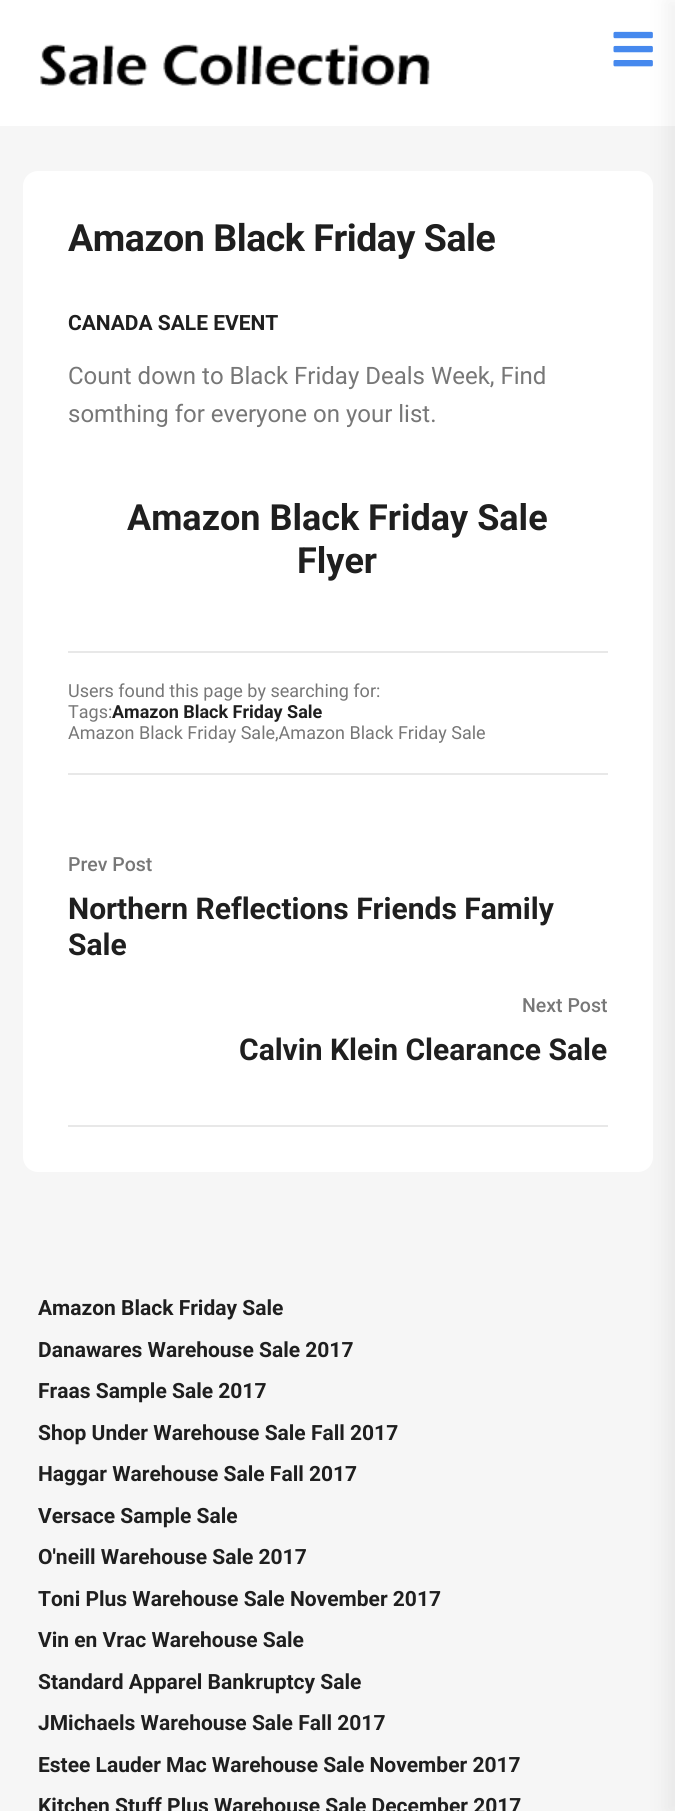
#include <cairo.h>
#include <math.h>
#include <stddef.h>


static void spaced_text(cairo_t *cr, double x, double y, const char *s, double letter, double word) {
    cairo_move_to(cr, x, y);
    while (*s) {
        char ch[5] = {0};
        int n = 0;
        do ch[n++] = *s++; while ((*s & 0xC0) == 0x80);
        cairo_show_text(cr, ch);
        cairo_rel_move_to(cr, letter + word * (*ch == ' '), 0);
    }
}

static void round_rect(cairo_t *cr, double x, double y, double w, double h, double r) {
    cairo_new_sub_path(cr);
    cairo_arc(cr, x + w - r, y + h - r, r, 0, M_PI / 2);
    cairo_arc(cr, x + r, y + h - r, r, M_PI / 2, M_PI);
    cairo_arc(cr, x + r, y + r, r, M_PI, 1.5 * M_PI);
    cairo_arc(cr, x + w - r, y + r, r, 1.5 * M_PI, 2 * M_PI);
    cairo_close_path(cr);
}

static void shadow(cairo_t *cr, double x, double y, double w, double h, double r, double blur, double alpha) {
    cairo_push_group_with_content(cr, CAIRO_CONTENT_ALPHA);
    cairo_set_operator(cr, CAIRO_OPERATOR_SOURCE);
    for (int i = 15; i >= -15 && fmin(w, h) + blur * i / 3 > 0; i -= 2) {
        double e = blur * i / 6;
        cairo_set_source_rgba(cr, 0, 0, 0, alpha * erfc((i - 1) / 8.5) / 2);
        round_rect(cr, x - e, y - e, w + 2 * e, h + 2 * e, fmax(0, fmin(r + e + blur * .6, fmin(w, h) / 2 + e)));
        cairo_fill(cr);
    }
    cairo_pattern_t *soft = cairo_pop_group(cr);
    cairo_mask(cr, soft);
    cairo_pattern_destroy(soft);
}

static void picture(cairo_t *cr, const char *path, double x, double y, double w, double h) {
    cairo_surface_t *image = cairo_image_surface_create_from_png(path);
    cairo_save(cr);
    cairo_set_source_surface(cr, image, x, y);
    cairo_rectangle(cr, x, y, w, h);
    cairo_fill(cr);
    cairo_restore(cr);
    cairo_surface_destroy(image);
}

int main(void) {
    cairo_surface_t *surface = cairo_image_surface_create(CAIRO_FORMAT_RGB24, 675, 1811);
    cairo_t *cr = cairo_create(surface);
    cairo_font_options_t *options = cairo_font_options_create();
    cairo_font_options_set_hint_metrics(options, CAIRO_HINT_METRICS_OFF);
    cairo_font_options_set_hint_style(options, CAIRO_HINT_STYLE_NONE);
    cairo_set_font_options(cr, options);
    cairo_set_miter_limit(cr, 4);
    cairo_set_source_rgb(cr, 0.961, 0.961, 0.961);
    cairo_paint(cr);
    cairo_set_source_rgb(cr, 1, 1, 1);
    cairo_rectangle(cr, 0, 0, 675, 126);
    cairo_fill(cr);
    picture(cr, "img1.png", 40, 44, 390, 42);
    picture(cr, "img2.png", 613, 31, 40, 36);
    round_rect(cr, 23, 171, 630, 1001, 15);
    cairo_fill(cr);
    cairo_set_source_rgb(cr, 0, 0, 0);
    shadow(cr, 666, 0, 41, 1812, 0, 10.5, 0.06);
    cairo_select_font_face(cr, "Roboto", CAIRO_FONT_SLANT_NORMAL, CAIRO_FONT_WEIGHT_BOLD);
    cairo_set_font_size(cr, 37.5);
    cairo_set_source_rgb(cr, 0.122, 0.122, 0.122);
    spaced_text(cr, 68, 251, "Amazon Black Friday Sale", -0.45, 0);
    cairo_set_font_size(cr, 21);
    cairo_move_to(cr, 68, 330);
    cairo_show_text(cr, "CANADA SALE EVENT");
    cairo_select_font_face(cr, "Roboto", CAIRO_FONT_SLANT_NORMAL, CAIRO_FONT_WEIGHT_NORMAL);
    cairo_set_font_size(cr, 24);
    cairo_set_source_rgb(cr, 0.467, 0.467, 0.467);
    cairo_move_to(cr, 68, 384);
    cairo_show_text(cr, "Count down to Black Friday Deals Week, Find");
    cairo_move_to(cr, 68, 422);
    cairo_show_text(cr, "somthing for everyone on your list.");
    cairo_select_font_face(cr, "Roboto", CAIRO_FONT_SLANT_NORMAL, CAIRO_FONT_WEIGHT_BOLD);
    cairo_set_font_size(cr, 36);
    cairo_set_source_rgb(cr, 0.122, 0.122, 0.122);
    cairo_move_to(cr, 127, 530);
    cairo_show_text(cr, "Amazon Black Friday Sale");
    cairo_move_to(cr, 297, 573);
    cairo_show_text(cr, "Flyer");
    cairo_set_source_rgb(cr, 0.91, 0.91, 0.91);
    cairo_rectangle(cr, 68, 651, 540, 2);
    cairo_fill(cr);
    cairo_rectangle(cr, 68, 773, 540, 2);
    cairo_fill(cr);
    cairo_select_font_face(cr, "Roboto", CAIRO_FONT_SLANT_NORMAL, CAIRO_FONT_WEIGHT_NORMAL);
    cairo_set_font_size(cr, 18);
    cairo_set_source_rgb(cr, 0.467, 0.467, 0.467);
    cairo_move_to(cr, 68, 697);
    cairo_show_text(cr, "Users found this page by searching for:");
    cairo_move_to(cr, 68, 718);
    cairo_show_text(cr, "Tags:");
    cairo_select_font_face(cr, "Roboto", CAIRO_FONT_SLANT_NORMAL, CAIRO_FONT_WEIGHT_BOLD);
    cairo_set_source_rgb(cr, 0.122, 0.122, 0.122);
    cairo_move_to(cr, 112, 718);
    cairo_show_text(cr, "Amazon Black Friday Sale");
    cairo_select_font_face(cr, "Roboto", CAIRO_FONT_SLANT_NORMAL, CAIRO_FONT_WEIGHT_NORMAL);
    cairo_set_source_rgb(cr, 0.467, 0.467, 0.467);
    cairo_move_to(cr, 68, 739);
    cairo_show_text(cr, "Amazon Black Friday Sale,Amazon Black Friday Sale");
    cairo_set_source_rgb(cr, 0.91, 0.91, 0.91);
    cairo_rectangle(cr, 68, 1125, 540, 2);
    cairo_fill(cr);
    cairo_select_font_face(cr, "Roboto Medium", CAIRO_FONT_SLANT_NORMAL, CAIRO_FONT_WEIGHT_NORMAL);
    cairo_set_font_size(cr, 19.5);
    cairo_set_source_rgb(cr, 0.467, 0.467, 0.467);
    cairo_move_to(cr, 68, 871);
    cairo_show_text(cr, "Prev Post");
    cairo_select_font_face(cr, "Roboto", CAIRO_FONT_SLANT_NORMAL, CAIRO_FONT_WEIGHT_BOLD);
    cairo_set_font_size(cr, 30);
    cairo_set_source_rgb(cr, 0.122, 0.122, 0.122);
    cairo_move_to(cr, 68, 919);
    cairo_show_text(cr, "Northern Reflections Friends Family");
    cairo_move_to(cr, 68, 955);
    cairo_show_text(cr, "Sale");
    cairo_select_font_face(cr, "Roboto Medium", CAIRO_FONT_SLANT_NORMAL, CAIRO_FONT_WEIGHT_NORMAL);
    cairo_set_font_size(cr, 19.5);
    cairo_set_source_rgb(cr, 0.467, 0.467, 0.467);
    cairo_move_to(cr, 522, 1012);
    cairo_show_text(cr, "Next Post");
    cairo_select_font_face(cr, "Roboto", CAIRO_FONT_SLANT_NORMAL, CAIRO_FONT_WEIGHT_BOLD);
    cairo_set_font_size(cr, 30);
    cairo_set_source_rgb(cr, 0.122, 0.122, 0.122);
    cairo_move_to(cr, 239, 1060);
    cairo_show_text(cr, "Calvin Klein Clearance Sale");
    cairo_set_font_size(cr, 21);
    cairo_move_to(cr, 38, 1315);
    cairo_show_text(cr, "Amazon Black Friday Sale");
    cairo_move_to(cr, 38, 1357);
    cairo_show_text(cr, "Danawares Warehouse Sale 2017");
    cairo_move_to(cr, 38, 1398);
    cairo_show_text(cr, "Fraas Sample Sale 2017");
    cairo_move_to(cr, 38, 1440);
    cairo_show_text(cr, "Shop Under Warehouse Sale Fall 2017");
    cairo_move_to(cr, 38, 1481);
    cairo_show_text(cr, "Haggar Warehouse Sale Fall 2017");
    cairo_move_to(cr, 38, 1523);
    cairo_show_text(cr, "Versace Sample Sale");
    cairo_move_to(cr, 38, 1564);
    cairo_show_text(cr, "O'neill Warehouse Sale 2017");
    cairo_move_to(cr, 38, 1606);
    cairo_show_text(cr, "Toni Plus Warehouse Sale November 2017");
    cairo_move_to(cr, 38, 1647);
    cairo_show_text(cr, "Vin en Vrac Warehouse Sale");
    cairo_move_to(cr, 38, 1689);
    cairo_show_text(cr, "Standard Apparel Bankruptcy Sale");
    cairo_move_to(cr, 38, 1730);
    cairo_show_text(cr, "JMichaels Warehouse Sale Fall 2017");
    cairo_move_to(cr, 38, 1772);
    cairo_show_text(cr, "Estee Lauder Mac Warehouse Sale November 2017");
    cairo_move_to(cr, 38, 1813);
    cairo_show_text(cr, "Kitchen Stuff Plus Warehouse Sale December 2017");
    cairo_surface_write_to_png(surface, "page.png");
    cairo_font_options_destroy(options);
    cairo_destroy(cr);
    cairo_surface_destroy(surface);
    return 0;
}
